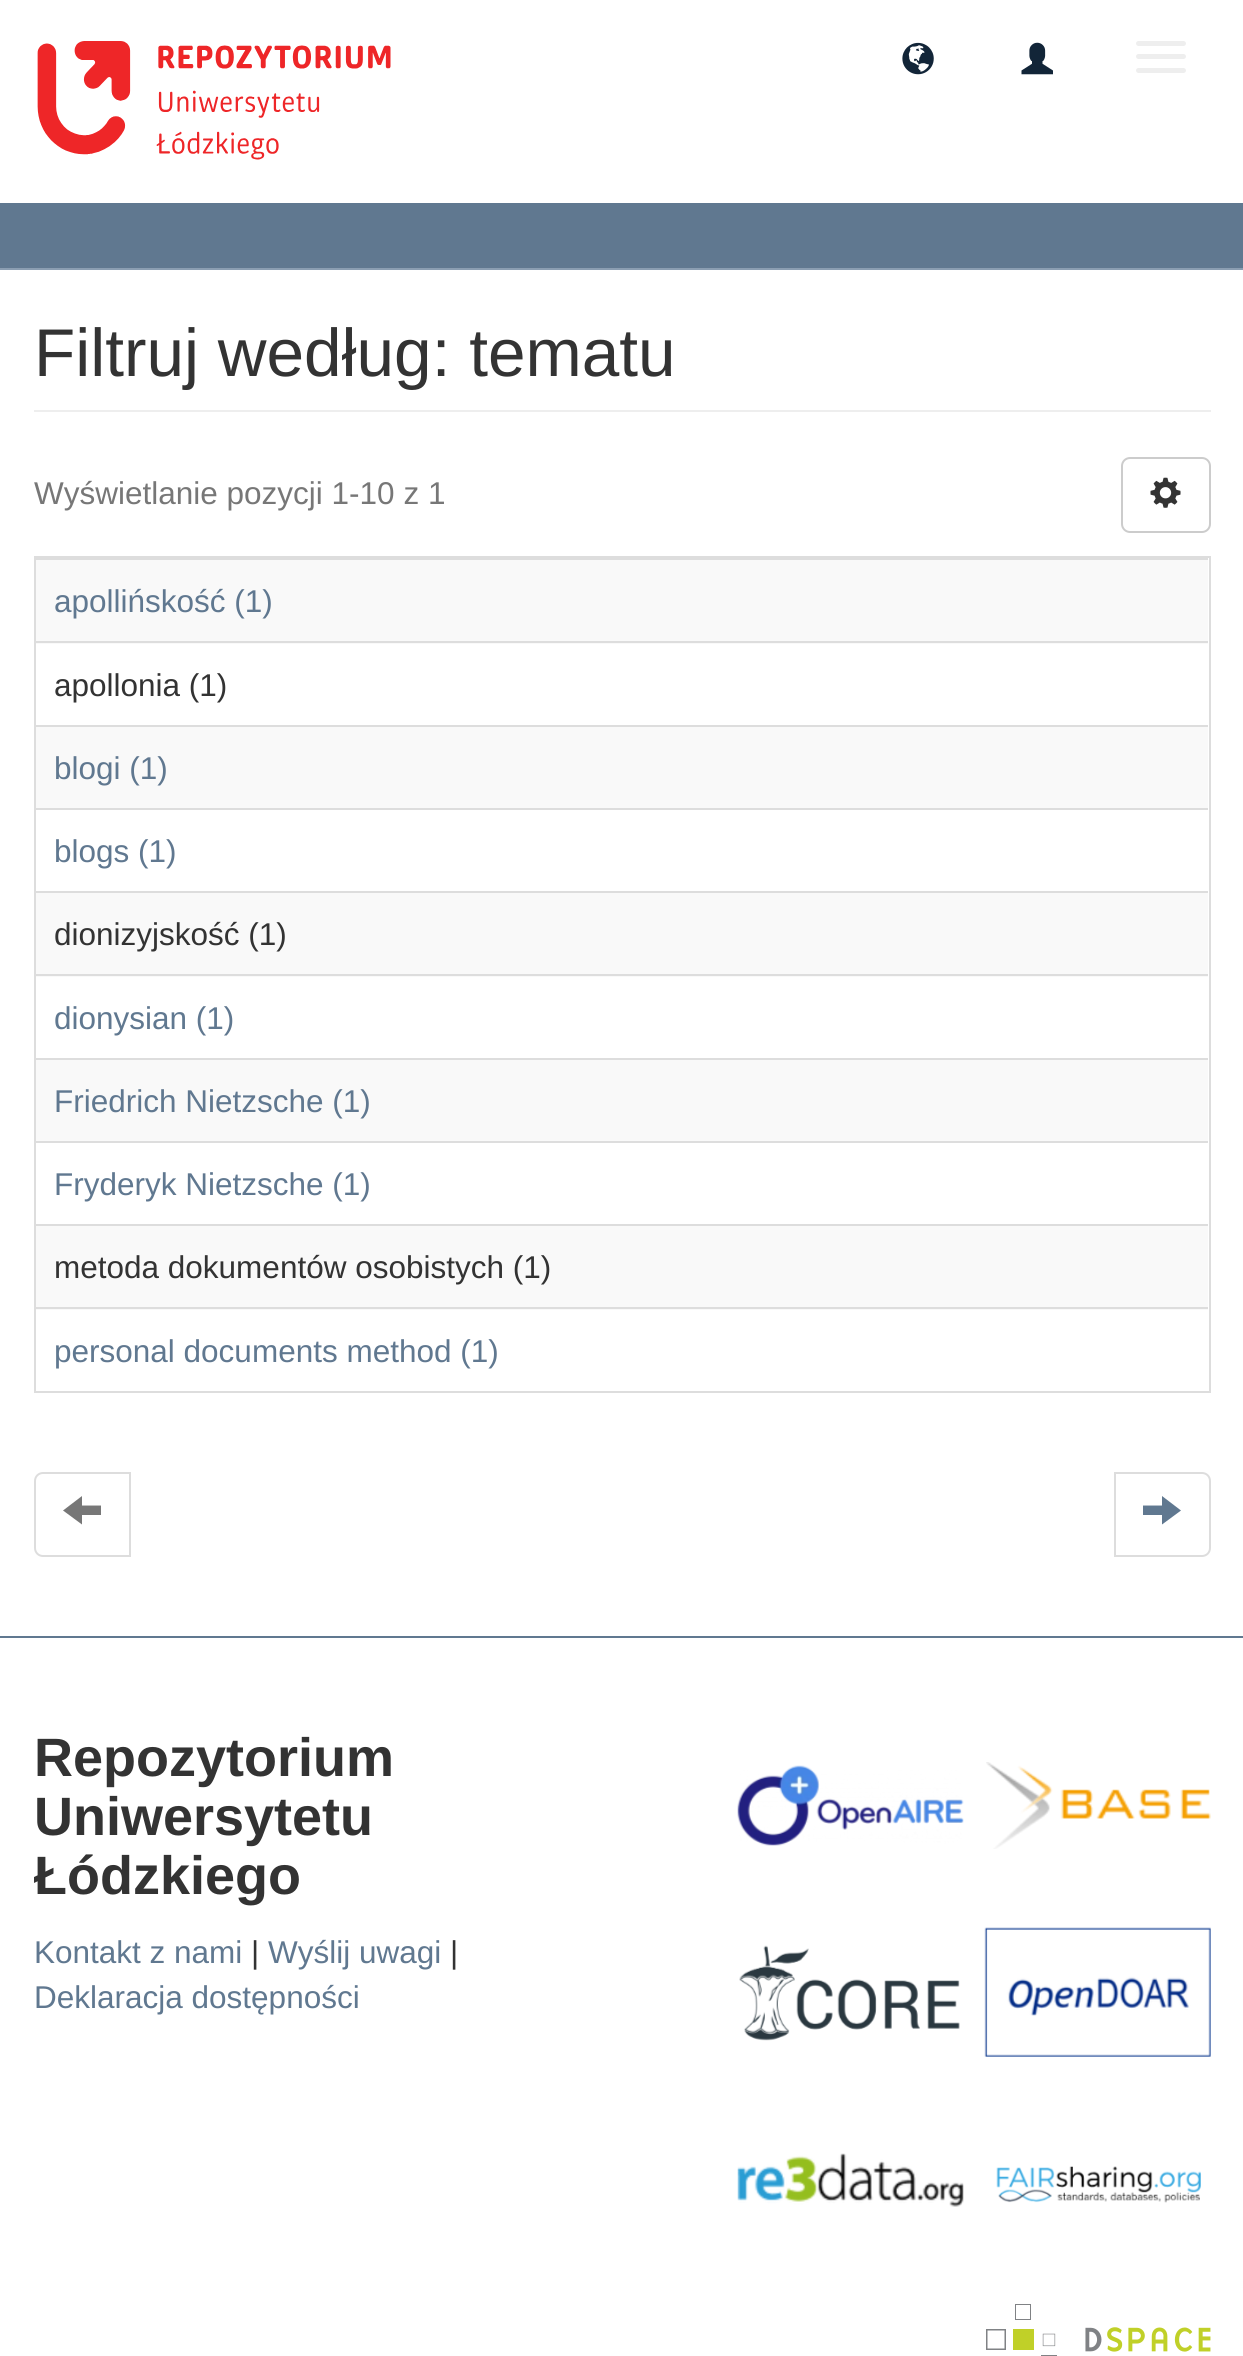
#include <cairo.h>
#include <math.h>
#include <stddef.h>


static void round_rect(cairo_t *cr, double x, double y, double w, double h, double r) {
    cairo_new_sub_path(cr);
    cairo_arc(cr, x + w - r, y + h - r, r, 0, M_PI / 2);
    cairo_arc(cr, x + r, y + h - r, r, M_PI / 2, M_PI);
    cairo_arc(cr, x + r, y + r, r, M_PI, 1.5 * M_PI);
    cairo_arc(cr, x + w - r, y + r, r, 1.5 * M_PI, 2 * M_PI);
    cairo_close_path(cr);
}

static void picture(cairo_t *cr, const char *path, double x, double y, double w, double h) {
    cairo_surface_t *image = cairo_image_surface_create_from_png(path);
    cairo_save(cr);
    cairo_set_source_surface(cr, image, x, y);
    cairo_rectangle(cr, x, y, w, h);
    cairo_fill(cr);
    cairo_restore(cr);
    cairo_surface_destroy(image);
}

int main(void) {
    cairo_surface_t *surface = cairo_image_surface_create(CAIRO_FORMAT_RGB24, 1243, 2356);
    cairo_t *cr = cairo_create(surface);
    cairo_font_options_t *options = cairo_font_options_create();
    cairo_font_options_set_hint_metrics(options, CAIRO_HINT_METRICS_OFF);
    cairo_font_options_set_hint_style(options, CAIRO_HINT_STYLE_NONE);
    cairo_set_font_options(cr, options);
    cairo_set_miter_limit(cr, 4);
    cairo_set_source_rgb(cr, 1, 1, 1);
    cairo_paint(cr);
    picture(cr, "img1.png", 37, 41, 354, 119);
    picture(cr, "img2.png", 902, 42, 32, 33);
    picture(cr, "img3.png", 1021, 42, 32, 33);
    cairo_set_source_rgb(cr, 0.933, 0.933, 0.933);
    round_rect(cr, 1136, 41, 50, 5, 2.5);
    cairo_fill(cr);
    round_rect(cr, 1136, 54, 50, 5, 2.5);
    cairo_fill(cr);
    round_rect(cr, 1136, 68, 50, 5, 2.5);
    cairo_fill(cr);
    cairo_set_source_rgb(cr, 0.376, 0.471, 0.565);
    cairo_rectangle(cr, 0, 203, 1243, 65);
    cairo_fill(cr);
    cairo_set_source_rgb(cr, 0.545, 0.62, 0.698);
    cairo_rectangle(cr, 0, 268, 1243, 2);
    cairo_fill(cr);
    cairo_set_source_rgb(cr, 0.933, 0.933, 0.933);
    cairo_rectangle(cr, 34, 410, 1177, 2);
    cairo_fill(cr);
    cairo_select_font_face(cr, "Liberation Sans", CAIRO_FONT_SLANT_NORMAL, CAIRO_FONT_WEIGHT_NORMAL);
    cairo_set_font_size(cr, 67.5);
    cairo_set_source_rgb(cr, 0.2, 0.2, 0.2);
    cairo_move_to(cr, 34, 376);
    cairo_show_text(cr, "Filtruj według: tematu");
    cairo_set_font_size(cr, 31.5);
    cairo_set_source_rgb(cr, 0.467, 0.467, 0.467);
    cairo_move_to(cr, 34, 504);
    cairo_show_text(cr, "Wyświetlanie pozycji 1-10 z 1");
    round_rect(cr, 1122, 458, 88, 74, 8);
    cairo_set_source_rgb(cr, 0.8, 0.8, 0.8);
    cairo_stroke(cr);
    picture(cr, "img4.png", 1150, 477, 31, 31);
    cairo_rectangle(cr, 35, 557, 1175, 835);
    cairo_set_source_rgb(cr, 0.867, 0.867, 0.867);
    cairo_stroke(cr);
    cairo_set_source_rgb(cr, 0.976, 0.976, 0.976);
    cairo_rectangle(cr, 36, 560, 1172, 84);
    cairo_fill(cr);
    cairo_set_source_rgb(cr, 0.867, 0.867, 0.867);
    cairo_rectangle(cr, 36, 558, 1172, 2);
    cairo_fill(cr);
    cairo_set_source_rgb(cr, 0.376, 0.471, 0.565);
    cairo_move_to(cr, 54, 612);
    cairo_show_text(cr, "apollińskość (1)");
    cairo_set_source_rgb(cr, 0.867, 0.867, 0.867);
    cairo_rectangle(cr, 36, 641, 1172, 2);
    cairo_fill(cr);
    cairo_set_source_rgb(cr, 0.2, 0.2, 0.2);
    cairo_move_to(cr, 54, 696);
    cairo_show_text(cr, "apollonia (1)");
    cairo_set_source_rgb(cr, 0.976, 0.976, 0.976);
    cairo_rectangle(cr, 36, 727, 1172, 81);
    cairo_fill(cr);
    cairo_set_source_rgb(cr, 0.867, 0.867, 0.867);
    cairo_rectangle(cr, 36, 725, 1172, 2);
    cairo_fill(cr);
    cairo_set_source_rgb(cr, 0.376, 0.471, 0.565);
    cairo_move_to(cr, 54, 779);
    cairo_show_text(cr, "blogi (1)");
    cairo_set_source_rgb(cr, 0.867, 0.867, 0.867);
    cairo_rectangle(cr, 36, 808, 1172, 2);
    cairo_fill(cr);
    cairo_set_source_rgb(cr, 0.376, 0.471, 0.565);
    cairo_move_to(cr, 54, 862);
    cairo_show_text(cr, "blogs (1)");
    cairo_set_source_rgb(cr, 0.976, 0.976, 0.976);
    cairo_rectangle(cr, 36, 893, 1172, 84);
    cairo_fill(cr);
    cairo_set_source_rgb(cr, 0.867, 0.867, 0.867);
    cairo_rectangle(cr, 36, 891, 1172, 2);
    cairo_fill(cr);
    cairo_set_source_rgb(cr, 0.2, 0.2, 0.2);
    cairo_move_to(cr, 54, 945);
    cairo_show_text(cr, "dionizyjskość (1)");
    cairo_set_source_rgb(cr, 0.867, 0.867, 0.867);
    cairo_rectangle(cr, 36, 974, 1172, 2);
    cairo_fill(cr);
    cairo_set_source_rgb(cr, 0.376, 0.471, 0.565);
    cairo_move_to(cr, 54, 1029);
    cairo_show_text(cr, "dionysian (1)");
    cairo_set_source_rgb(cr, 0.976, 0.976, 0.976);
    cairo_rectangle(cr, 36, 1060, 1172, 81);
    cairo_fill(cr);
    cairo_set_source_rgb(cr, 0.867, 0.867, 0.867);
    cairo_rectangle(cr, 36, 1058, 1172, 2);
    cairo_fill(cr);
    cairo_set_source_rgb(cr, 0.376, 0.471, 0.565);
    cairo_move_to(cr, 54, 1112);
    cairo_show_text(cr, "Friedrich Nietzsche (1)");
    cairo_set_source_rgb(cr, 0.867, 0.867, 0.867);
    cairo_rectangle(cr, 36, 1141, 1172, 2);
    cairo_fill(cr);
    cairo_set_source_rgb(cr, 0.376, 0.471, 0.565);
    cairo_move_to(cr, 54, 1195);
    cairo_show_text(cr, "Fryderyk Nietzsche (1)");
    cairo_set_source_rgb(cr, 0.976, 0.976, 0.976);
    cairo_rectangle(cr, 36, 1226, 1172, 84);
    cairo_fill(cr);
    cairo_set_source_rgb(cr, 0.867, 0.867, 0.867);
    cairo_rectangle(cr, 36, 1224, 1172, 2);
    cairo_fill(cr);
    cairo_set_source_rgb(cr, 0.2, 0.2, 0.2);
    cairo_move_to(cr, 54, 1278);
    cairo_show_text(cr, "metoda dokumentów osobistych (1)");
    cairo_set_source_rgb(cr, 0.867, 0.867, 0.867);
    cairo_rectangle(cr, 36, 1307, 1172, 2);
    cairo_fill(cr);
    cairo_set_source_rgb(cr, 0.376, 0.471, 0.565);
    cairo_move_to(cr, 54, 1362);
    cairo_show_text(cr, "personal documents method (1)");
    cairo_new_path(cr);
    cairo_move_to(cr, 43, 1473);
    cairo_line_to(cr, 130, 1473);
    cairo_line_to(cr, 130, 1556);
    cairo_line_to(cr, 43, 1556);
    cairo_curve_to(cr, 38.5, 1556, 35, 1552.5, 35, 1548);
    cairo_line_to(cr, 35, 1481);
    cairo_curve_to(cr, 35, 1476.5, 38.5, 1473, 43, 1473);
    cairo_close_path(cr);
    cairo_set_source_rgb(cr, 0.867, 0.867, 0.867);
    cairo_stroke(cr);
    cairo_set_source_rgb(cr, 0.467, 0.467, 0.467);
    cairo_new_path(cr);
    cairo_move_to(cr, 63, 1510.5);
    cairo_line_to(cr, 82, 1496);
    cairo_line_to(cr, 82, 1505.5);
    cairo_line_to(cr, 101, 1505.5);
    cairo_line_to(cr, 101, 1515);
    cairo_line_to(cr, 82, 1515);
    cairo_line_to(cr, 82, 1524.5);
    cairo_close_path(cr);
    cairo_fill(cr);
    cairo_new_path(cr);
    cairo_move_to(cr, 1115, 1473);
    cairo_line_to(cr, 1202, 1473);
    cairo_curve_to(cr, 1206.5, 1473, 1210, 1476.5, 1210, 1481);
    cairo_line_to(cr, 1210, 1548);
    cairo_curve_to(cr, 1210, 1552.5, 1206.5, 1556, 1202, 1556);
    cairo_line_to(cr, 1115, 1556);
    cairo_close_path(cr);
    cairo_set_source_rgb(cr, 0.867, 0.867, 0.867);
    cairo_stroke(cr);
    cairo_set_source_rgb(cr, 0.376, 0.471, 0.565);
    cairo_new_path(cr);
    cairo_move_to(cr, 1143, 1515);
    cairo_line_to(cr, 1143, 1505.5);
    cairo_line_to(cr, 1162, 1505.5);
    cairo_line_to(cr, 1162, 1496);
    cairo_line_to(cr, 1181, 1510.5);
    cairo_line_to(cr, 1162, 1524.5);
    cairo_line_to(cr, 1162, 1515);
    cairo_close_path(cr);
    cairo_fill(cr);
    cairo_rectangle(cr, 0, 1636, 1243, 2);
    cairo_fill(cr);
    cairo_select_font_face(cr, "Liberation Sans", CAIRO_FONT_SLANT_NORMAL, CAIRO_FONT_WEIGHT_BOLD);
    cairo_set_font_size(cr, 54);
    cairo_set_source_rgb(cr, 0.2, 0.2, 0.2);
    cairo_move_to(cr, 34, 1776);
    cairo_show_text(cr, "Repozytorium");
    cairo_move_to(cr, 34, 1835);
    cairo_show_text(cr, "Uniwersytetu");
    cairo_move_to(cr, 34, 1894);
    cairo_show_text(cr, "Łódzkiego");
    cairo_select_font_face(cr, "Liberation Sans", CAIRO_FONT_SLANT_NORMAL, CAIRO_FONT_WEIGHT_NORMAL);
    cairo_set_font_size(cr, 31.5);
    cairo_set_source_rgb(cr, 0.376, 0.471, 0.565);
    cairo_move_to(cr, 34, 1963);
    cairo_show_text(cr, "Kontakt z nami");
    cairo_set_source_rgb(cr, 0.2, 0.2, 0.2);
    cairo_move_to(cr, 251, 1963);
    cairo_show_text(cr, "|");
    cairo_set_source_rgb(cr, 0.376, 0.471, 0.565);
    cairo_move_to(cr, 268, 1963);
    cairo_show_text(cr, "Wyślij uwagi");
    cairo_set_source_rgb(cr, 0.2, 0.2, 0.2);
    cairo_move_to(cr, 450, 1963);
    cairo_show_text(cr, "|");
    cairo_set_source_rgb(cr, 0.376, 0.471, 0.565);
    cairo_move_to(cr, 34, 2008);
    cairo_show_text(cr, "Deklaracja dostępności");
    picture(cr, "img5.png", 737, 1765, 227, 81);
    picture(cr, "img6.png", 986, 1762, 225, 87);
    picture(cr, "img7.png", 739, 1945, 221, 96);
    picture(cr, "img8.png", 984, 1927, 227, 130);
    picture(cr, "img9.png", 737, 2153, 227, 54);
    picture(cr, "img10.png", 996, 2166, 205, 37);
    picture(cr, "img11.png", 986, 2304, 225, 52);
    cairo_surface_write_to_png(surface, "page.png");
    cairo_font_options_destroy(options);
    cairo_destroy(cr);
    cairo_surface_destroy(surface);
    return 0;
}
